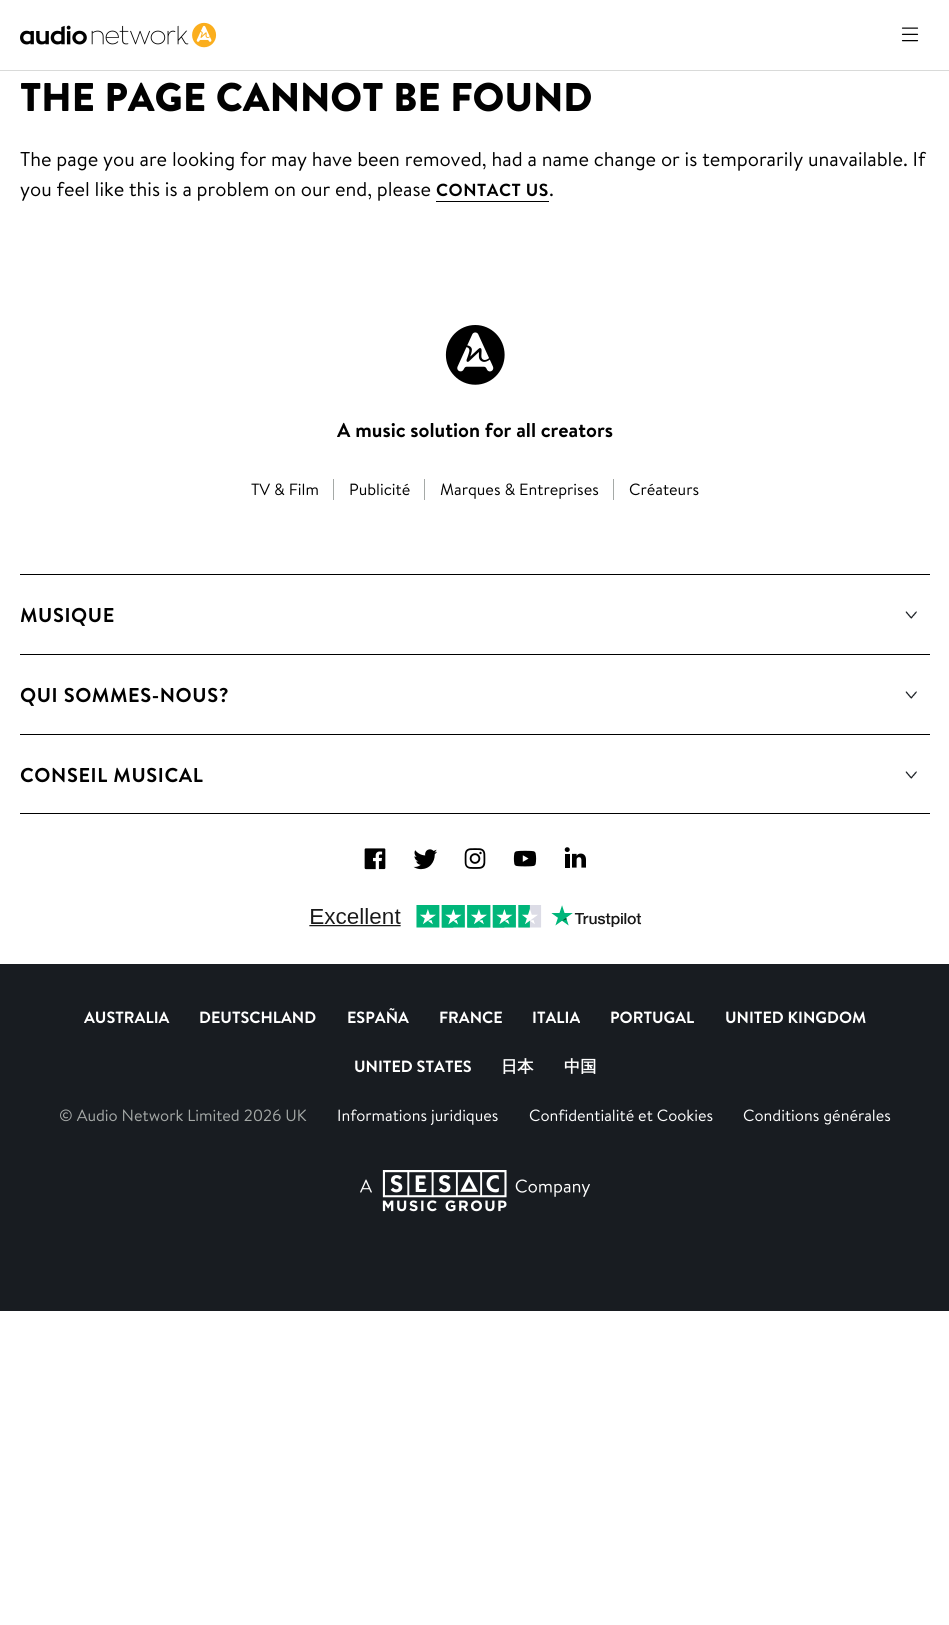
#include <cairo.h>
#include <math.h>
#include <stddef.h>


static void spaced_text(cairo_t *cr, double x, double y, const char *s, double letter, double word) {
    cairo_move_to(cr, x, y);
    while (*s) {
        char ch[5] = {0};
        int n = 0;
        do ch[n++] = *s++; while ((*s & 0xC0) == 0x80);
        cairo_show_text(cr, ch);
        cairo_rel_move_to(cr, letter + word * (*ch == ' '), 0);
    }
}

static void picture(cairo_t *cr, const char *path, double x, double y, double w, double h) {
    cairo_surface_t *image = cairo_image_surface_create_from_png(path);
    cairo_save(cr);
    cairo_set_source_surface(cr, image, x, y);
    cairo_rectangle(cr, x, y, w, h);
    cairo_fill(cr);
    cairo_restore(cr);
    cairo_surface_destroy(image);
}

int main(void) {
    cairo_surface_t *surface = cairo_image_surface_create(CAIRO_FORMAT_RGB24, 949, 1625);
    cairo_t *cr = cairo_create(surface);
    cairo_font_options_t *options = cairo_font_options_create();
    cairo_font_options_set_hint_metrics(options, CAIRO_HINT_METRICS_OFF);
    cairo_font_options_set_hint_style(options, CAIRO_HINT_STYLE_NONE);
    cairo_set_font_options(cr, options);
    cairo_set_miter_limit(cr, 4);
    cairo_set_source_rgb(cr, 1, 1, 1);
    cairo_paint(cr);
    cairo_set_source_rgb(cr, 0.851, 0.855, 0.851);
    cairo_rectangle(cr, 0, 70, 949, 1);
    cairo_fill(cr);
    picture(cr, "img1.png", 20, 22, 197, 26);
    picture(cr, "img2.png", 901, 27, 18, 15);
    cairo_select_font_face(cr, "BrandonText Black", CAIRO_FONT_SLANT_NORMAL, CAIRO_FONT_WEIGHT_NORMAL);
    cairo_set_font_size(cr, 40);
    cairo_set_source_rgb(cr, 0.004, 0.004, 0.004);
    cairo_move_to(cr, 20, 111);
    cairo_show_text(cr, "THE PAGE CANNOT BE FOUND");
    cairo_select_font_face(cr, "BrandonText", CAIRO_FONT_SLANT_NORMAL, CAIRO_FONT_WEIGHT_NORMAL);
    cairo_set_font_size(cr, 20);
    cairo_move_to(cr, 20, 166);
    cairo_show_text(cr, "The page you are looking for may have been removed, had a name change or is temporarily unavailable. If");
    cairo_move_to(cr, 20, 196);
    cairo_show_text(cr, "you feel like this is a problem on our end, please");
    cairo_select_font_face(cr, "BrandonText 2", CAIRO_FONT_SLANT_NORMAL, CAIRO_FONT_WEIGHT_NORMAL);
    cairo_set_font_size(cr, 17.5);
    spaced_text(cr, 436, 196, "CONTACT US", 0.5, 0);
    cairo_rectangle(cr, 436, 201, 113, 1);
    cairo_fill(cr);
    cairo_select_font_face(cr, "BrandonText", CAIRO_FONT_SLANT_NORMAL, CAIRO_FONT_WEIGHT_NORMAL);
    cairo_set_font_size(cr, 20);
    cairo_move_to(cr, 549, 196);
    cairo_show_text(cr, ".");
    picture(cr, "img3.png", 445, 325, 60, 60);
    cairo_select_font_face(cr, "BrandonText 2", CAIRO_FONT_SLANT_NORMAL, CAIRO_FONT_WEIGHT_NORMAL);
    cairo_move_to(cr, 337, 437);
    cairo_show_text(cr, "A music solution for all creators");
    cairo_select_font_face(cr, "BrandonText", CAIRO_FONT_SLANT_NORMAL, CAIRO_FONT_WEIGHT_NORMAL);
    cairo_set_font_size(cr, 16.25);
    cairo_move_to(cr, 251, 495);
    cairo_show_text(cr, "TV & Film");
    cairo_set_source_rgb(cr, 0.647, 0.663, 0.655);
    cairo_rectangle(cr, 333, 479, 1, 21);
    cairo_fill(cr);
    cairo_set_source_rgb(cr, 0.004, 0.004, 0.004);
    cairo_move_to(cr, 349, 495);
    cairo_show_text(cr, "Publicité");
    cairo_set_source_rgb(cr, 0.647, 0.663, 0.655);
    cairo_rectangle(cr, 424, 479, 1, 21);
    cairo_fill(cr);
    cairo_set_source_rgb(cr, 0.004, 0.004, 0.004);
    cairo_move_to(cr, 440, 495);
    cairo_show_text(cr, "Marques & Entreprises");
    cairo_set_source_rgb(cr, 0.647, 0.663, 0.655);
    cairo_rectangle(cr, 613, 479, 1, 21);
    cairo_fill(cr);
    cairo_set_source_rgb(cr, 0.004, 0.004, 0.004);
    cairo_move_to(cr, 629, 495);
    cairo_show_text(cr, "Créateurs");
    cairo_set_source_rgb(cr, 0, 0, 0);
    cairo_rectangle(cr, 20, 574, 910, 1);
    cairo_fill(cr);
    cairo_select_font_face(cr, "BrandonText 2", CAIRO_FONT_SLANT_NORMAL, CAIRO_FONT_WEIGHT_NORMAL);
    cairo_set_font_size(cr, 20);
    cairo_set_source_rgb(cr, 0.004, 0.004, 0.004);
    spaced_text(cr, 20, 622, "MUSIQUE", 0.6, 0);
    picture(cr, "img4.png", 905, 611, 12, 8);
    cairo_set_source_rgb(cr, 0, 0, 0);
    cairo_rectangle(cr, 20, 654, 910, 1);
    cairo_fill(cr);
    cairo_set_source_rgb(cr, 0.004, 0.004, 0.004);
    spaced_text(cr, 20, 702, "QUI SOMMES-NOUS?", 0.6, 0);
    picture(cr, "img4.png", 905, 691, 12, 8);
    cairo_set_source_rgb(cr, 0, 0, 0);
    cairo_rectangle(cr, 20, 734, 910, 1);
    cairo_fill(cr);
    cairo_rectangle(cr, 20, 813, 910, 1);
    cairo_fill(cr);
    cairo_set_source_rgb(cr, 0.004, 0.004, 0.004);
    spaced_text(cr, 20, 782, "CONSEIL MUSICAL", 0.6, 0);
    picture(cr, "img4.png", 905, 771, 12, 8);
    picture(cr, "img5.png", 364, 848, 22, 22);
    picture(cr, "img6.png", 413, 849, 24, 21);
    picture(cr, "img7.png", 464, 848, 22, 21);
    picture(cr, "img8.png", 513, 850, 24, 17);
    picture(cr, "img9.png", 564, 847, 22, 21);
    picture(cr, "img10.png", 309, 905, 333, 23);
    cairo_set_source_rgb(cr, 0.094, 0.11, 0.129);
    cairo_rectangle(cr, 0, 964, 949, 347);
    cairo_fill(cr);
    cairo_set_font_size(cr, 16.25);
    cairo_set_source_rgb(cr, 1, 1, 1);
    cairo_move_to(cr, 84, 1023);
    cairo_show_text(cr, "AUSTRALIA");
    cairo_move_to(cr, 199, 1023);
    cairo_show_text(cr, "DEUTSCHLAND");
    cairo_move_to(cr, 347, 1023);
    cairo_show_text(cr, "ESPAÑA");
    cairo_move_to(cr, 439, 1023);
    cairo_show_text(cr, "FRANCE");
    cairo_move_to(cr, 532, 1023);
    cairo_show_text(cr, "ITALIA");
    cairo_move_to(cr, 610, 1023);
    cairo_show_text(cr, "PORTUGAL");
    cairo_move_to(cr, 725, 1023);
    cairo_show_text(cr, "UNITED KINGDOM");
    cairo_move_to(cr, 354, 1072);
    cairo_show_text(cr, "UNITED STATES");
    cairo_select_font_face(cr, "WenQuanYi Zen Hei", CAIRO_FONT_SLANT_NORMAL, CAIRO_FONT_WEIGHT_BOLD);
    cairo_move_to(cr, 501, 1072);
    cairo_show_text(cr, "日本");
    cairo_move_to(cr, 564, 1072);
    cairo_show_text(cr, "中国");
    cairo_select_font_face(cr, "BrandonText", CAIRO_FONT_SLANT_NORMAL, CAIRO_FONT_WEIGHT_NORMAL);
    cairo_set_source_rgb(cr, 0.647, 0.663, 0.655);
    cairo_move_to(cr, 59, 1121);
    cairo_show_text(cr, "© Audio Network Limited 2026 UK");
    cairo_set_source_rgb(cr, 1, 1, 1);
    cairo_move_to(cr, 337, 1121);
    cairo_show_text(cr, "Informations juridiques");
    cairo_move_to(cr, 529, 1121);
    cairo_show_text(cr, "Confidentialité et Cookies");
    cairo_move_to(cr, 743, 1121);
    cairo_show_text(cr, "Conditions générales");
    picture(cr, "img11.png", 360, 1170, 230, 42);
    cairo_surface_write_to_png(surface, "page.png");
    cairo_font_options_destroy(options);
    cairo_destroy(cr);
    cairo_surface_destroy(surface);
    return 0;
}
